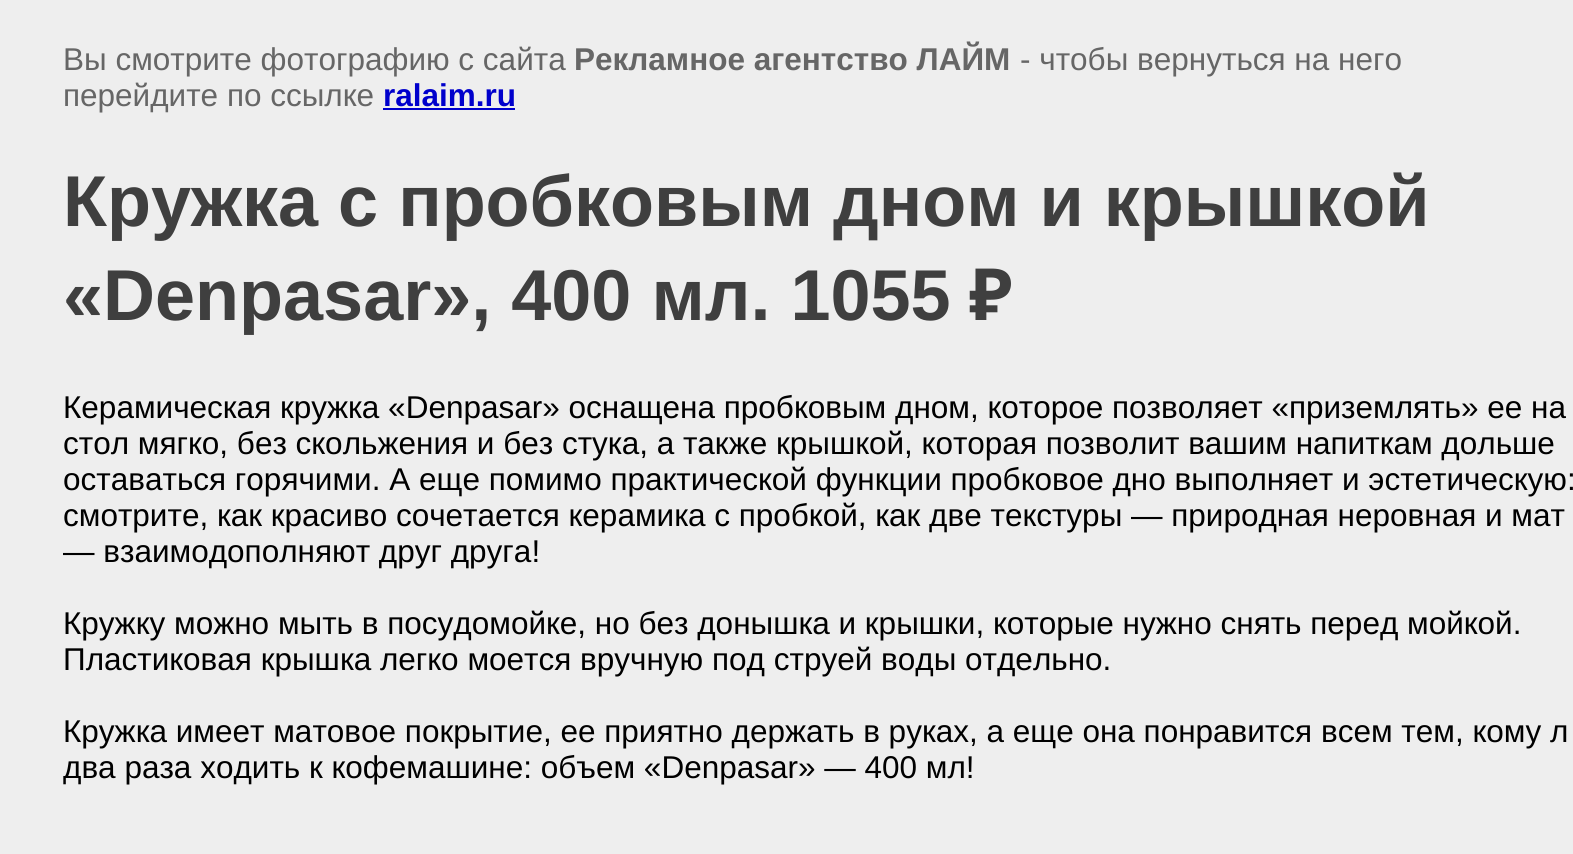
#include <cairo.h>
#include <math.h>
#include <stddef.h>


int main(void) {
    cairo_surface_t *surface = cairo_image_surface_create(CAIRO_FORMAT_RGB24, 1573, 854);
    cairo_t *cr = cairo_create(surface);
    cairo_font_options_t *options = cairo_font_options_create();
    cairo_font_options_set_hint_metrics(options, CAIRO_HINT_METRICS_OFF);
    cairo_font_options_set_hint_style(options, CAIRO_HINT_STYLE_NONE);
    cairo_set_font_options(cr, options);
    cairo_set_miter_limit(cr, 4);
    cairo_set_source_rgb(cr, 0.933, 0.933, 0.933);
    cairo_paint(cr);
    cairo_select_font_face(cr, "Liberation Sans", CAIRO_FONT_SLANT_NORMAL, CAIRO_FONT_WEIGHT_NORMAL);
    cairo_set_font_size(cr, 31.5);
    cairo_set_source_rgb(cr, 0.4, 0.4, 0.4);
    cairo_move_to(cr, 63, 70);
    cairo_show_text(cr, "Вы смотрите фотографию с сайта");
    cairo_select_font_face(cr, "Liberation Sans", CAIRO_FONT_SLANT_NORMAL, CAIRO_FONT_WEIGHT_BOLD);
    cairo_move_to(cr, 574, 70);
    cairo_show_text(cr, "Рекламное агентство ЛАЙМ");
    cairo_select_font_face(cr, "Liberation Sans", CAIRO_FONT_SLANT_NORMAL, CAIRO_FONT_WEIGHT_NORMAL);
    cairo_move_to(cr, 1020, 70);
    cairo_show_text(cr, "- чтобы вернуться на него");
    cairo_move_to(cr, 63, 106);
    cairo_show_text(cr, "перейдите по ссылке");
    cairo_select_font_face(cr, "Liberation Sans", CAIRO_FONT_SLANT_NORMAL, CAIRO_FONT_WEIGHT_BOLD);
    cairo_set_source_rgb(cr, 0, 0, 0.8);
    cairo_move_to(cr, 383, 106);
    cairo_show_text(cr, "ralaim.ru");
    cairo_rectangle(cr, 383, 108, 132, 2);
    cairo_fill(cr);
    cairo_set_font_size(cr, 72);
    cairo_set_source_rgb(cr, 0.247, 0.247, 0.247);
    cairo_move_to(cr, 63, 226);
    cairo_show_text(cr, "Кружка с пробковым дном и крышкой");
    cairo_move_to(cr, 63, 320);
    cairo_show_text(cr, "«Denpasar», 400 мл. 1055");
    cairo_select_font_face(cr, "Noto Sans", CAIRO_FONT_SLANT_NORMAL, CAIRO_FONT_WEIGHT_BOLD);
    cairo_move_to(cr, 969, 320);
    cairo_show_text(cr, "₽");
    cairo_select_font_face(cr, "Liberation Sans", CAIRO_FONT_SLANT_NORMAL, CAIRO_FONT_WEIGHT_NORMAL);
    cairo_set_font_size(cr, 31.5);
    cairo_set_source_rgb(cr, 0, 0, 0);
    cairo_move_to(cr, 63, 418);
    cairo_show_text(cr, "Керамическая кружка «Denpasar» оснащена пробковым дном, которое позволяет «приземлять» ее на");
    cairo_move_to(cr, 63, 454);
    cairo_show_text(cr, "стол мягко, без скольжения и без стука, а также крышкой, которая позволит вашим напиткам дольше");
    cairo_move_to(cr, 63, 490);
    cairo_show_text(cr, "оставаться горячими. А еще помимо практической функции пробковое дно выполняет и эстетическую:");
    cairo_move_to(cr, 63, 526);
    cairo_show_text(cr, "смотрите, как красиво сочетается керамика с пробкой, как две текстуры — природная неровная и мат");
    cairo_move_to(cr, 63, 562);
    cairo_show_text(cr, "— взаимодополняют друг друга!");
    cairo_move_to(cr, 63, 634);
    cairo_show_text(cr, "Кружку можно мыть в посудомойке, но без донышка и крышки, которые нужно снять перед мойкой.");
    cairo_move_to(cr, 63, 670);
    cairo_show_text(cr, "Пластиковая крышка легко моется вручную под струей воды отдельно.");
    cairo_move_to(cr, 63, 742);
    cairo_show_text(cr, "Кружка имеет матовое покрытие, ее приятно держать в руках, а еще она понравится всем тем, кому л");
    cairo_move_to(cr, 63, 778);
    cairo_show_text(cr, "два раза ходить к кофемашине: объем «Denpasar» — 400 мл!");
    cairo_surface_write_to_png(surface, "page.png");
    cairo_font_options_destroy(options);
    cairo_destroy(cr);
    cairo_surface_destroy(surface);
    return 0;
}
